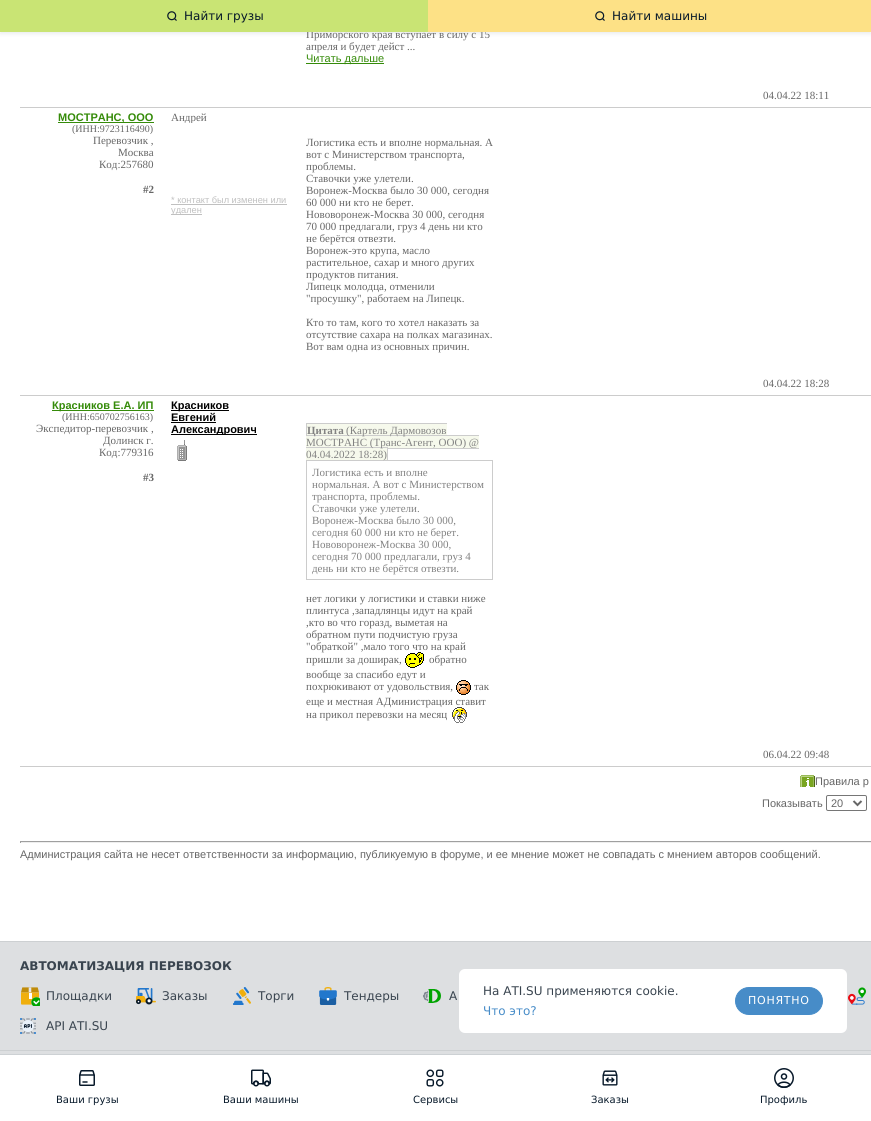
#include <cairo.h>
#include <math.h>
#include <stddef.h>


static void spaced_text(cairo_t *cr, double x, double y, const char *s, double letter, double word) {
    cairo_move_to(cr, x, y);
    while (*s) {
        char ch[5] = {0};
        int n = 0;
        do ch[n++] = *s++; while ((*s & 0xC0) == 0x80);
        cairo_show_text(cr, ch);
        cairo_rel_move_to(cr, letter + word * (*ch == ' '), 0);
    }
}

static void round_rect(cairo_t *cr, double x, double y, double w, double h, double r) {
    cairo_new_sub_path(cr);
    cairo_arc(cr, x + w - r, y + h - r, r, 0, M_PI / 2);
    cairo_arc(cr, x + r, y + h - r, r, M_PI / 2, M_PI);
    cairo_arc(cr, x + r, y + r, r, M_PI, 1.5 * M_PI);
    cairo_arc(cr, x + w - r, y + r, r, 1.5 * M_PI, 2 * M_PI);
    cairo_close_path(cr);
}

static void shadow(cairo_t *cr, double x, double y, double w, double h, double r, double blur, double alpha) {
    cairo_push_group_with_content(cr, CAIRO_CONTENT_ALPHA);
    cairo_set_operator(cr, CAIRO_OPERATOR_SOURCE);
    for (int i = 15; i >= -15 && fmin(w, h) + blur * i / 3 > 0; i -= 2) {
        double e = blur * i / 6;
        cairo_set_source_rgba(cr, 0, 0, 0, alpha * erfc((i - 1) / 8.5) / 2);
        round_rect(cr, x - e, y - e, w + 2 * e, h + 2 * e, fmax(0, fmin(r + e + blur * .6, fmin(w, h) / 2 + e)));
        cairo_fill(cr);
    }
    cairo_pattern_t *soft = cairo_pop_group(cr);
    cairo_mask(cr, soft);
    cairo_pattern_destroy(soft);
}

static void picture(cairo_t *cr, const char *path, double x, double y, double w, double h) {
    cairo_surface_t *image = cairo_image_surface_create_from_png(path);
    cairo_save(cr);
    cairo_set_source_surface(cr, image, x, y);
    cairo_rectangle(cr, x, y, w, h);
    cairo_fill(cr);
    cairo_restore(cr);
    cairo_surface_destroy(image);
}

int main(void) {
    cairo_surface_t *surface = cairo_image_surface_create(CAIRO_FORMAT_RGB24, 871, 1121);
    cairo_t *cr = cairo_create(surface);
    cairo_font_options_t *options = cairo_font_options_create();
    cairo_font_options_set_hint_metrics(options, CAIRO_HINT_METRICS_OFF);
    cairo_font_options_set_hint_style(options, CAIRO_HINT_STYLE_NONE);
    cairo_set_font_options(cr, options);
    cairo_set_miter_limit(cr, 4);
    cairo_set_source_rgb(cr, 1, 1, 1);
    cairo_paint(cr);
    cairo_set_source_rgb(cr, 0.027, 0.094, 0.161);
    shadow(cr, 0, 2, 871, 32, 0, 2, 0.08);
    cairo_select_font_face(cr, "Liberation Serif", CAIRO_FONT_SLANT_NORMAL, CAIRO_FONT_WEIGHT_NORMAL);
    cairo_set_font_size(cr, 11);
    cairo_set_source_rgb(cr, 0.4, 0.4, 0.4);
    cairo_move_to(cr, 306, 38);
    cairo_show_text(cr, "Приморского края вступает в силу с 15");
    cairo_set_source_rgb(cr, 0.827, 0.933, 0.471);
    cairo_rectangle(cr, 0, 0, 428, 32);
    cairo_fill(cr);
    picture(cr, "img1.png", 167, 11, 10, 10);
    cairo_set_source_rgba(cr, 0.027, 0.094, 0.161, 0.05);
    cairo_rectangle(cr, 0, 0, 428, 32);
    cairo_fill(cr);
    cairo_select_font_face(cr, "DejaVu Sans", CAIRO_FONT_SLANT_NORMAL, CAIRO_FONT_WEIGHT_NORMAL);
    cairo_set_font_size(cr, 12);
    cairo_set_source_rgb(cr, 0.027, 0.094, 0.161);
    cairo_move_to(cr, 184, 20);
    cairo_show_text(cr, "Найти грузы");
    cairo_set_source_rgb(cr, 0.992, 0.882, 0.525);
    cairo_rectangle(cr, 428, 0, 443, 32);
    cairo_fill(cr);
    picture(cr, "img2.png", 595, 11, 10, 10);
    cairo_set_source_rgb(cr, 0.027, 0.094, 0.161);
    cairo_move_to(cr, 612, 20);
    cairo_show_text(cr, "Найти машины");
    cairo_set_source_rgb(cr, 0.867, 0.875, 0.882);
    cairo_rectangle(cr, 0, 942, 871, 112);
    cairo_fill(cr);
    cairo_set_source_rgb(cr, 1, 1, 1);
    round_rect(cr, 459, 969, 388, 64, 6);
    cairo_fill(cr);
    cairo_set_source_rgb(cr, 0.224, 0.267, 0.31);
    cairo_move_to(cr, 483, 995);
    cairo_show_text(cr, "На ATI.SU применяются cookie.");
    cairo_set_source_rgb(cr, 0.278, 0.549, 0.784);
    cairo_move_to(cr, 483, 1015);
    cairo_show_text(cr, "Что это?");
    round_rect(cr, 735.5, 987.5, 87, 27, 13.5);
    cairo_fill_preserve(cr);
    cairo_set_line_width(cr, 1);
    cairo_stroke(cr);
    cairo_set_font_size(cr, 11);
    cairo_set_source_rgb(cr, 1, 1, 1);
    spaced_text(cr, 748, 1004, "ПОНЯТНО", 0.75, 0);
    cairo_set_source_rgb(cr, 0.804, 0.82, 0.831);
    cairo_rectangle(cr, 0, 1054, 871, 1);
    cairo_fill(cr);
    picture(cr, "img3.png", 79, 1070, 16, 16);
    cairo_set_font_size(cr, 10);
    cairo_set_source_rgb(cr, 0.027, 0.094, 0.161);
    cairo_move_to(cr, 56, 1103);
    cairo_show_text(cr, "Ваши грузы");
    picture(cr, "img4.png", 251, 1069, 20, 18);
    cairo_move_to(cr, 223, 1103);
    cairo_show_text(cr, "Ваши машины");
    picture(cr, "img5.png", 426, 1069, 18, 18);
    cairo_move_to(cr, 413, 1103);
    cairo_show_text(cr, "Сервисы");
    picture(cr, "img6.png", 602, 1070, 16, 16);
    cairo_move_to(cr, 591, 1103);
    cairo_show_text(cr, "Заказы");
    picture(cr, "img7.png", 774, 1068, 20, 20);
    cairo_move_to(cr, 760, 1103);
    cairo_show_text(cr, "Профиль");
    cairo_set_source_rgb(cr, 0.8, 0.8, 0.8);
    cairo_rectangle(cr, 20, 107, 851, 1);
    cairo_fill(cr);
    cairo_select_font_face(cr, "Liberation Serif", CAIRO_FONT_SLANT_NORMAL, CAIRO_FONT_WEIGHT_NORMAL);
    cairo_set_font_size(cr, 11);
    cairo_set_source_rgb(cr, 0.4, 0.4, 0.4);
    cairo_move_to(cr, 306, 50);
    cairo_show_text(cr, "апреля и будет дейст ...");
    cairo_set_source_rgb(cr, 0.208, 0.545, 0.039);
    cairo_rectangle(cr, 306, 63, 78, 1);
    cairo_fill(cr);
    cairo_select_font_face(cr, "Liberation Sans", CAIRO_FONT_SLANT_NORMAL, CAIRO_FONT_WEIGHT_NORMAL);
    cairo_move_to(cr, 306, 62);
    cairo_show_text(cr, "Читать дальше");
    cairo_select_font_face(cr, "Liberation Serif", CAIRO_FONT_SLANT_NORMAL, CAIRO_FONT_WEIGHT_NORMAL);
    cairo_set_source_rgb(cr, 0.4, 0.4, 0.4);
    cairo_move_to(cr, 763, 99);
    cairo_show_text(cr, "04.04.22 18:11");
    cairo_set_source_rgb(cr, 0.8, 0.8, 0.8);
    cairo_rectangle(cr, 20, 395, 851, 1);
    cairo_fill(cr);
    cairo_set_source_rgb(cr, 0.208, 0.545, 0.039);
    cairo_rectangle(cr, 58, 122, 96, 1);
    cairo_fill(cr);
    cairo_select_font_face(cr, "Liberation Sans", CAIRO_FONT_SLANT_NORMAL, CAIRO_FONT_WEIGHT_BOLD);
    cairo_move_to(cr, 58, 121);
    cairo_show_text(cr, "МОСТРАНС, ООО");
    cairo_select_font_face(cr, "Liberation Serif", CAIRO_FONT_SLANT_NORMAL, CAIRO_FONT_WEIGHT_NORMAL);
    cairo_set_font_size(cr, 10);
    cairo_set_source_rgb(cr, 0.4, 0.4, 0.4);
    cairo_move_to(cr, 72, 132);
    cairo_show_text(cr, "(ИНН:9723116490)");
    cairo_set_font_size(cr, 11);
    cairo_move_to(cr, 93, 144);
    cairo_show_text(cr, "Перевозчик ,");
    cairo_move_to(cr, 118, 156);
    cairo_show_text(cr, "Москва");
    cairo_move_to(cr, 99, 168);
    cairo_show_text(cr, "Код:257680");
    cairo_select_font_face(cr, "Liberation Serif", CAIRO_FONT_SLANT_NORMAL, CAIRO_FONT_WEIGHT_BOLD);
    cairo_move_to(cr, 143, 193);
    cairo_show_text(cr, "#2");
    cairo_save(cr);
    cairo_rectangle(cr, 171, 111, 108, 12);
    cairo_clip(cr);
    cairo_select_font_face(cr, "Liberation Serif", CAIRO_FONT_SLANT_NORMAL, CAIRO_FONT_WEIGHT_NORMAL);
    cairo_move_to(cr, 171, 121);
    cairo_show_text(cr, "Андрей");
    cairo_restore(cr);
    cairo_select_font_face(cr, "Liberation Sans", CAIRO_FONT_SLANT_NORMAL, CAIRO_FONT_WEIGHT_NORMAL);
    cairo_set_font_size(cr, 9.25);
    cairo_set_source_rgb(cr, 0.753, 0.753, 0.753);
    cairo_move_to(cr, 171, 203);
    cairo_show_text(cr, "* контакт был изменен или");
    cairo_rectangle(cr, 171, 204, 116, 1);
    cairo_fill(cr);
    cairo_rectangle(cr, 171, 214, 31, 1);
    cairo_fill(cr);
    cairo_move_to(cr, 171, 213);
    cairo_show_text(cr, "удален");
    cairo_select_font_face(cr, "Liberation Serif", CAIRO_FONT_SLANT_NORMAL, CAIRO_FONT_WEIGHT_NORMAL);
    cairo_set_font_size(cr, 11);
    cairo_set_source_rgb(cr, 0.4, 0.4, 0.4);
    cairo_move_to(cr, 306, 146);
    cairo_show_text(cr, "Логистика есть и вполне нормальная. А");
    cairo_move_to(cr, 306, 158);
    cairo_show_text(cr, "вот с Министерством транспорта,");
    cairo_move_to(cr, 306, 170);
    cairo_show_text(cr, "проблемы.");
    cairo_move_to(cr, 306, 182);
    cairo_show_text(cr, "Ставочки уже улетели.");
    cairo_move_to(cr, 306, 194);
    cairo_show_text(cr, "Воронеж-Москва было 30 000, сегодня");
    cairo_move_to(cr, 306, 206);
    cairo_show_text(cr, "60 000 ни кто не берет.");
    cairo_move_to(cr, 306, 218);
    cairo_show_text(cr, "Нововоронеж-Москва 30 000, сегодня");
    cairo_move_to(cr, 306, 230);
    cairo_show_text(cr, "70 000 предлагали, груз 4 день ни кто");
    cairo_move_to(cr, 306, 242);
    cairo_show_text(cr, "не берётся отвезти.");
    cairo_move_to(cr, 306, 254);
    cairo_show_text(cr, "Воронеж-это крупа, масло");
    cairo_move_to(cr, 306, 266);
    cairo_show_text(cr, "растительное, сахар и много других");
    cairo_move_to(cr, 306, 278);
    cairo_show_text(cr, "продуктов питания.");
    cairo_move_to(cr, 306, 290);
    cairo_show_text(cr, "Липецк молодца, отменили");
    cairo_move_to(cr, 306, 302);
    cairo_show_text(cr, "\"просушку\", работаем на Липецк.");
    cairo_move_to(cr, 306, 326);
    cairo_show_text(cr, "Кто то там, кого то хотел наказать за");
    cairo_move_to(cr, 306, 338);
    cairo_show_text(cr, "отсутствие сахара на полках магазинах.");
    cairo_move_to(cr, 306, 350);
    cairo_show_text(cr, "Вот вам одна из основных причин.");
    cairo_move_to(cr, 763, 387);
    cairo_show_text(cr, "04.04.22 18:28");
    cairo_set_source_rgb(cr, 0.8, 0.8, 0.8);
    cairo_rectangle(cr, 20, 766, 851, 1);
    cairo_fill(cr);
    cairo_set_source_rgb(cr, 0.208, 0.545, 0.039);
    cairo_rectangle(cr, 52, 410, 102, 1);
    cairo_fill(cr);
    cairo_select_font_face(cr, "Liberation Sans", CAIRO_FONT_SLANT_NORMAL, CAIRO_FONT_WEIGHT_BOLD);
    cairo_move_to(cr, 52, 409);
    cairo_show_text(cr, "Красников Е.А. ИП");
    cairo_select_font_face(cr, "Liberation Serif", CAIRO_FONT_SLANT_NORMAL, CAIRO_FONT_WEIGHT_NORMAL);
    cairo_set_font_size(cr, 10);
    cairo_set_source_rgb(cr, 0.4, 0.4, 0.4);
    cairo_move_to(cr, 62, 420);
    cairo_show_text(cr, "(ИНН:650702756163)");
    cairo_set_font_size(cr, 11);
    cairo_move_to(cr, 36, 432);
    cairo_show_text(cr, "Экспедитор-перевозчик ,");
    cairo_move_to(cr, 103, 444);
    cairo_show_text(cr, "Долинск г.");
    cairo_move_to(cr, 99, 456);
    cairo_show_text(cr, "Код:779316");
    cairo_select_font_face(cr, "Liberation Serif", CAIRO_FONT_SLANT_NORMAL, CAIRO_FONT_WEIGHT_BOLD);
    cairo_move_to(cr, 143, 481);
    cairo_show_text(cr, "#3");
    cairo_set_source_rgb(cr, 0, 0, 0);
    cairo_rectangle(cr, 171, 410, 58, 1);
    cairo_fill(cr);
    cairo_select_font_face(cr, "Liberation Sans", CAIRO_FONT_SLANT_NORMAL, CAIRO_FONT_WEIGHT_BOLD);
    cairo_move_to(cr, 171, 409);
    cairo_show_text(cr, "Красников");
    cairo_move_to(cr, 171, 421);
    cairo_show_text(cr, "Евгений");
    cairo_rectangle(cr, 171, 422, 45, 1);
    cairo_fill(cr);
    cairo_rectangle(cr, 171, 434, 86, 1);
    cairo_fill(cr);
    cairo_save(cr);
    cairo_rectangle(cr, 171, 399, 96, 36);
    cairo_clip(cr);
    cairo_move_to(cr, 171, 433);
    cairo_show_text(cr, "Александрович");
    cairo_restore(cr);
    picture(cr, "img8.png", 177, 440, 10, 21);
    cairo_set_source_rgb(cr, 0.961, 0.973, 0.925);
    cairo_rectangle(cr, 307, 424, 140, 11);
    cairo_fill(cr);
    cairo_set_source_rgb(cr, 0.8, 0.8, 0.8);
    cairo_rectangle(cr, 306, 423, 141, 1);
    cairo_fill(cr);
    cairo_rectangle(cr, 306, 423, 1, 14);
    cairo_fill(cr);
    cairo_rectangle(cr, 306, 435, 173, 1);
    cairo_fill(cr);
    cairo_set_source_rgb(cr, 0.961, 0.973, 0.925);
    cairo_rectangle(cr, 306, 436, 173, 12);
    cairo_fill(cr);
    cairo_select_font_face(cr, "Liberation Serif", CAIRO_FONT_SLANT_NORMAL, CAIRO_FONT_WEIGHT_BOLD);
    cairo_set_source_rgb(cr, 0.51, 0.51, 0.51);
    cairo_move_to(cr, 307, 434);
    cairo_show_text(cr, "Цитата");
    cairo_select_font_face(cr, "Liberation Serif", CAIRO_FONT_SLANT_NORMAL, CAIRO_FONT_WEIGHT_NORMAL);
    cairo_move_to(cr, 346, 434);
    cairo_show_text(cr, "(Картель Дармовозов");
    cairo_set_source_rgb(cr, 0.8, 0.8, 0.8);
    cairo_rectangle(cr, 388, 448, 91, 1);
    cairo_fill(cr);
    cairo_rectangle(cr, 306, 447, 82, 1);
    cairo_fill(cr);
    cairo_set_source_rgb(cr, 0.961, 0.973, 0.925);
    cairo_rectangle(cr, 306, 448, 81, 12);
    cairo_fill(cr);
    cairo_rectangle(cr, 306.5, 460.5, 186, 119);
    cairo_set_source_rgb(cr, 0.8, 0.8, 0.8);
    cairo_stroke(cr);
    cairo_rectangle(cr, 387, 447, 1, 14);
    cairo_fill(cr);
    cairo_set_source_rgb(cr, 0.51, 0.51, 0.51);
    cairo_move_to(cr, 306, 446);
    cairo_show_text(cr, "МОСТРАНС (Транс-Агент, ООО) @");
    cairo_move_to(cr, 306, 458);
    cairo_show_text(cr, "04.04.2022 18:28)");
    cairo_move_to(cr, 312, 476);
    cairo_show_text(cr, "Логистика есть и вполне");
    cairo_move_to(cr, 312, 488);
    cairo_show_text(cr, "нормальная. А вот с Министерством");
    cairo_move_to(cr, 312, 500);
    cairo_show_text(cr, "транспорта, проблемы.");
    cairo_move_to(cr, 312, 512);
    cairo_show_text(cr, "Ставочки уже улетели.");
    cairo_move_to(cr, 312, 524);
    cairo_show_text(cr, "Воронеж-Москва было 30 000,");
    cairo_move_to(cr, 312, 536);
    cairo_show_text(cr, "сегодня 60 000 ни кто не берет.");
    cairo_move_to(cr, 312, 548);
    cairo_show_text(cr, "Нововоронеж-Москва 30 000,");
    cairo_move_to(cr, 312, 560);
    cairo_show_text(cr, "сегодня 70 000 предлагали, груз 4");
    cairo_move_to(cr, 312, 572);
    cairo_show_text(cr, "день ни кто не берётся отвезти.");
    cairo_set_source_rgb(cr, 0.4, 0.4, 0.4);
    cairo_move_to(cr, 306, 602);
    cairo_show_text(cr, "нет логики у логистики и ставки ниже");
    cairo_move_to(cr, 306, 614);
    cairo_show_text(cr, "плинтуса ,западлянцы идут на край");
    cairo_move_to(cr, 306, 626);
    cairo_show_text(cr, ",кто во что горазд, выметая на");
    cairo_move_to(cr, 306, 638);
    cairo_show_text(cr, "обратном пути подчистую груза");
    cairo_move_to(cr, 306, 650);
    cairo_show_text(cr, "\"обраткой\" ,мало того что на край");
    cairo_move_to(cr, 306, 663);
    cairo_show_text(cr, "пришли за доширак,");
    picture(cr, "img9.png", 405, 652, 19, 16);
    cairo_move_to(cr, 429, 663);
    cairo_show_text(cr, "обратно");
    cairo_move_to(cr, 306, 678);
    cairo_show_text(cr, "вообще за спасибо едут и");
    cairo_move_to(cr, 306, 690);
    cairo_show_text(cr, "похрюкивают от удовольствия,");
    picture(cr, "img10.png", 456, 680, 15, 15);
    cairo_move_to(cr, 474, 690);
    cairo_show_text(cr, "так");
    cairo_move_to(cr, 306, 705);
    cairo_show_text(cr, "еще и местная АДминистрация ставит");
    cairo_move_to(cr, 306, 718);
    cairo_show_text(cr, "на прикол перевозки на месяц");
    picture(cr, "img11.png", 452, 707, 15, 16);
    cairo_move_to(cr, 763, 758);
    cairo_show_text(cr, "06.04.22 09:48");
    picture(cr, "img12.png", 800, 775, 15, 12);
    cairo_select_font_face(cr, "Liberation Sans", CAIRO_FONT_SLANT_NORMAL, CAIRO_FONT_WEIGHT_NORMAL);
    cairo_move_to(cr, 815, 785);
    cairo_show_text(cr, "Правила р");
    cairo_move_to(cr, 762, 807);
    cairo_show_text(cr, "Показывать");
    round_rect(cr, 826.5, 795.5, 40, 15, 1.5);
    cairo_set_source_rgb(cr, 0.463, 0.463, 0.463);
    cairo_stroke(cr);
    cairo_new_path(cr);
    cairo_move_to(cr, 853.5, 801);
    cairo_line_to(cr, 857.5, 805);
    cairo_line_to(cr, 861.5, 801);
    cairo_set_source_rgb(cr, 0.4, 0.4, 0.4);
    cairo_set_line_width(cr, 2);
    cairo_stroke(cr);
    cairo_move_to(cr, 831, 807);
    cairo_show_text(cr, "20");
    cairo_set_source_rgb(cr, 0.624, 0.624, 0.624);
    cairo_rectangle(cr, 20, 841, 851, 1);
    cairo_fill(cr);
    cairo_set_source_rgb(cr, 0.933, 0.933, 0.933);
    cairo_rectangle(cr, 20, 842, 851, 1);
    cairo_fill(cr);
    cairo_set_source_rgb(cr, 0.624, 0.624, 0.624);
    cairo_rectangle(cr, 20, 841, 1, 2);
    cairo_fill(cr);
    cairo_set_source_rgb(cr, 0.4, 0.4, 0.4);
    cairo_move_to(cr, 20, 858);
    cairo_show_text(cr, "Администрация сайта не несет ответственности за информацию, публикуемую в форуме, и ее мнение может не совпадать с мнением авторов сообщений.");
    cairo_set_source_rgb(cr, 0.804, 0.816, 0.824);
    cairo_rectangle(cr, 0, 941, 871, 1);
    cairo_fill(cr);
    cairo_rectangle(cr, 0, 1050, 871, 1);
    cairo_fill(cr);
    cairo_select_font_face(cr, "DejaVu Sans", CAIRO_FONT_SLANT_NORMAL, CAIRO_FONT_WEIGHT_BOLD);
    cairo_set_font_size(cr, 12);
    cairo_set_source_rgb(cr, 0.224, 0.267, 0.31);
    cairo_move_to(cr, 20, 970);
    cairo_show_text(cr, "АВТОМАТИЗАЦИЯ ПЕРЕВОЗОК");
    picture(cr, "img13.png", 21, 987, 19, 19);
    cairo_select_font_face(cr, "DejaVu Sans", CAIRO_FONT_SLANT_NORMAL, CAIRO_FONT_WEIGHT_NORMAL);
    cairo_move_to(cr, 46, 1000);
    cairo_show_text(cr, "Площадки");
    picture(cr, "img14.png", 136, 988, 20, 17);
    cairo_move_to(cr, 162, 1000);
    cairo_show_text(cr, "Заказы");
    picture(cr, "img15.png", 233, 987, 18, 18);
    cairo_move_to(cr, 258, 1000);
    cairo_show_text(cr, "Торги");
    picture(cr, "img16.png", 319, 987, 18, 18);
    cairo_move_to(cr, 344, 1000);
    cairo_show_text(cr, "Тендеры");
    picture(cr, "img17.png", 423, 989, 18, 14);
    cairo_move_to(cr, 449, 1000);
    cairo_show_text(cr, "А");
    picture(cr, "img18.png", 848, 987, 18, 18);
    picture(cr, "img19.png", 20, 1018, 16, 16);
    cairo_move_to(cr, 46, 1030);
    cairo_show_text(cr, "API ATI.SU");
    cairo_surface_write_to_png(surface, "page.png");
    cairo_font_options_destroy(options);
    cairo_destroy(cr);
    cairo_surface_destroy(surface);
    return 0;
}
